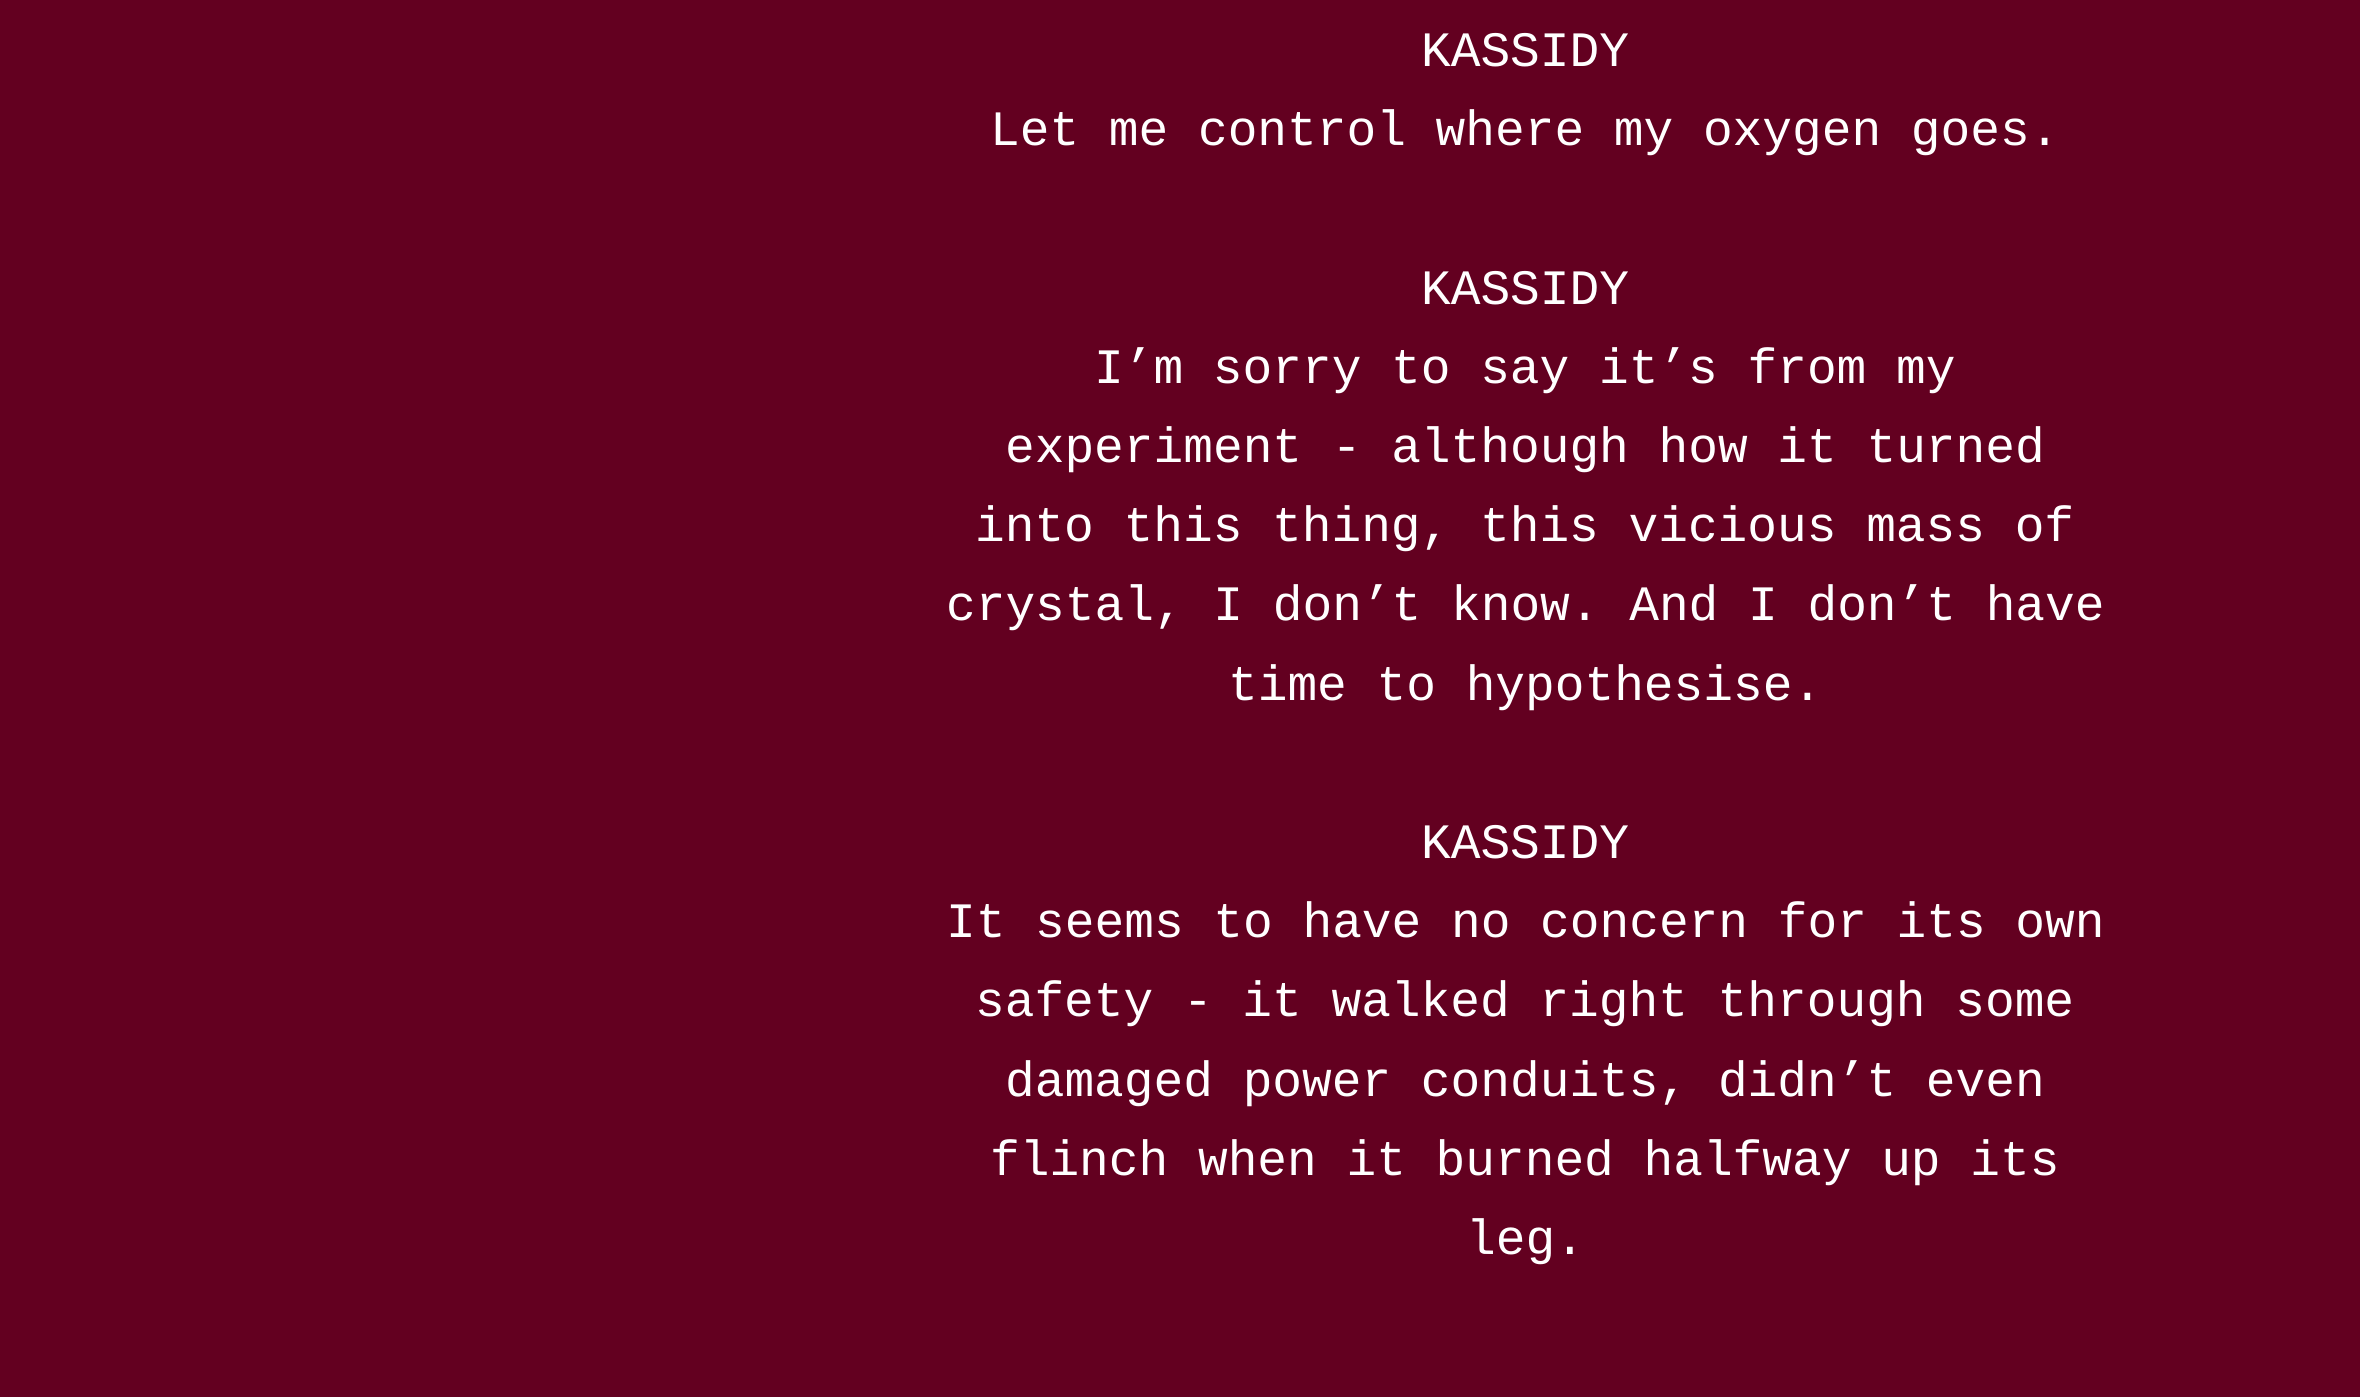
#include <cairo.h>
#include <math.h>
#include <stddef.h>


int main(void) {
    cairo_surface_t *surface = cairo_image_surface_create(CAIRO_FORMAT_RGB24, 2360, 1397);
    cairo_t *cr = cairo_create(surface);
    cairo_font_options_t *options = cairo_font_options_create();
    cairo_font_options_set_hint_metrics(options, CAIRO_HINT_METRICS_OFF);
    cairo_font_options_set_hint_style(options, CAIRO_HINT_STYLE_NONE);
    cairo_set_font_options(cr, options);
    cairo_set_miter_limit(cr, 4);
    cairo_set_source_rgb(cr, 0.388, 0, 0.125);
    cairo_paint(cr);
    cairo_select_font_face(cr, "Liberation Mono", CAIRO_FONT_SLANT_NORMAL, CAIRO_FONT_WEIGHT_NORMAL);
    cairo_set_font_size(cr, 49.5);
    cairo_set_source_rgb(cr, 1, 1, 1);
    cairo_move_to(cr, 1421, 66);
    cairo_show_text(cr, "KASSIDY");
    cairo_move_to(cr, 990, 145);
    cairo_show_text(cr, "Let me control where my oxygen goes.");
    cairo_move_to(cr, 1421, 304);
    cairo_show_text(cr, "KASSIDY");
    cairo_move_to(cr, 1094, 383);
    cairo_show_text(cr, "I’m sorry to say it’s from my");
    cairo_move_to(cr, 1005, 462);
    cairo_show_text(cr, "experiment - although how it turned");
    cairo_move_to(cr, 975, 541);
    cairo_show_text(cr, "into this thing, this vicious mass of");
    cairo_move_to(cr, 946, 620);
    cairo_show_text(cr, "crystal, I don’t know. And I don’t have");
    cairo_move_to(cr, 1228, 700);
    cairo_show_text(cr, "time to hypothesise.");
    cairo_move_to(cr, 1421, 858);
    cairo_show_text(cr, "KASSIDY");
    cairo_move_to(cr, 946, 937);
    cairo_show_text(cr, "It seems to have no concern for its own");
    cairo_move_to(cr, 975, 1016);
    cairo_show_text(cr, "safety - it walked right through some");
    cairo_move_to(cr, 1005, 1096);
    cairo_show_text(cr, "damaged power conduits, didn’t even");
    cairo_move_to(cr, 990, 1175);
    cairo_show_text(cr, "flinch when it burned halfway up its");
    cairo_move_to(cr, 1466, 1254);
    cairo_show_text(cr, "leg.");
    cairo_surface_write_to_png(surface, "page.png");
    cairo_font_options_destroy(options);
    cairo_destroy(cr);
    cairo_surface_destroy(surface);
    return 0;
}
